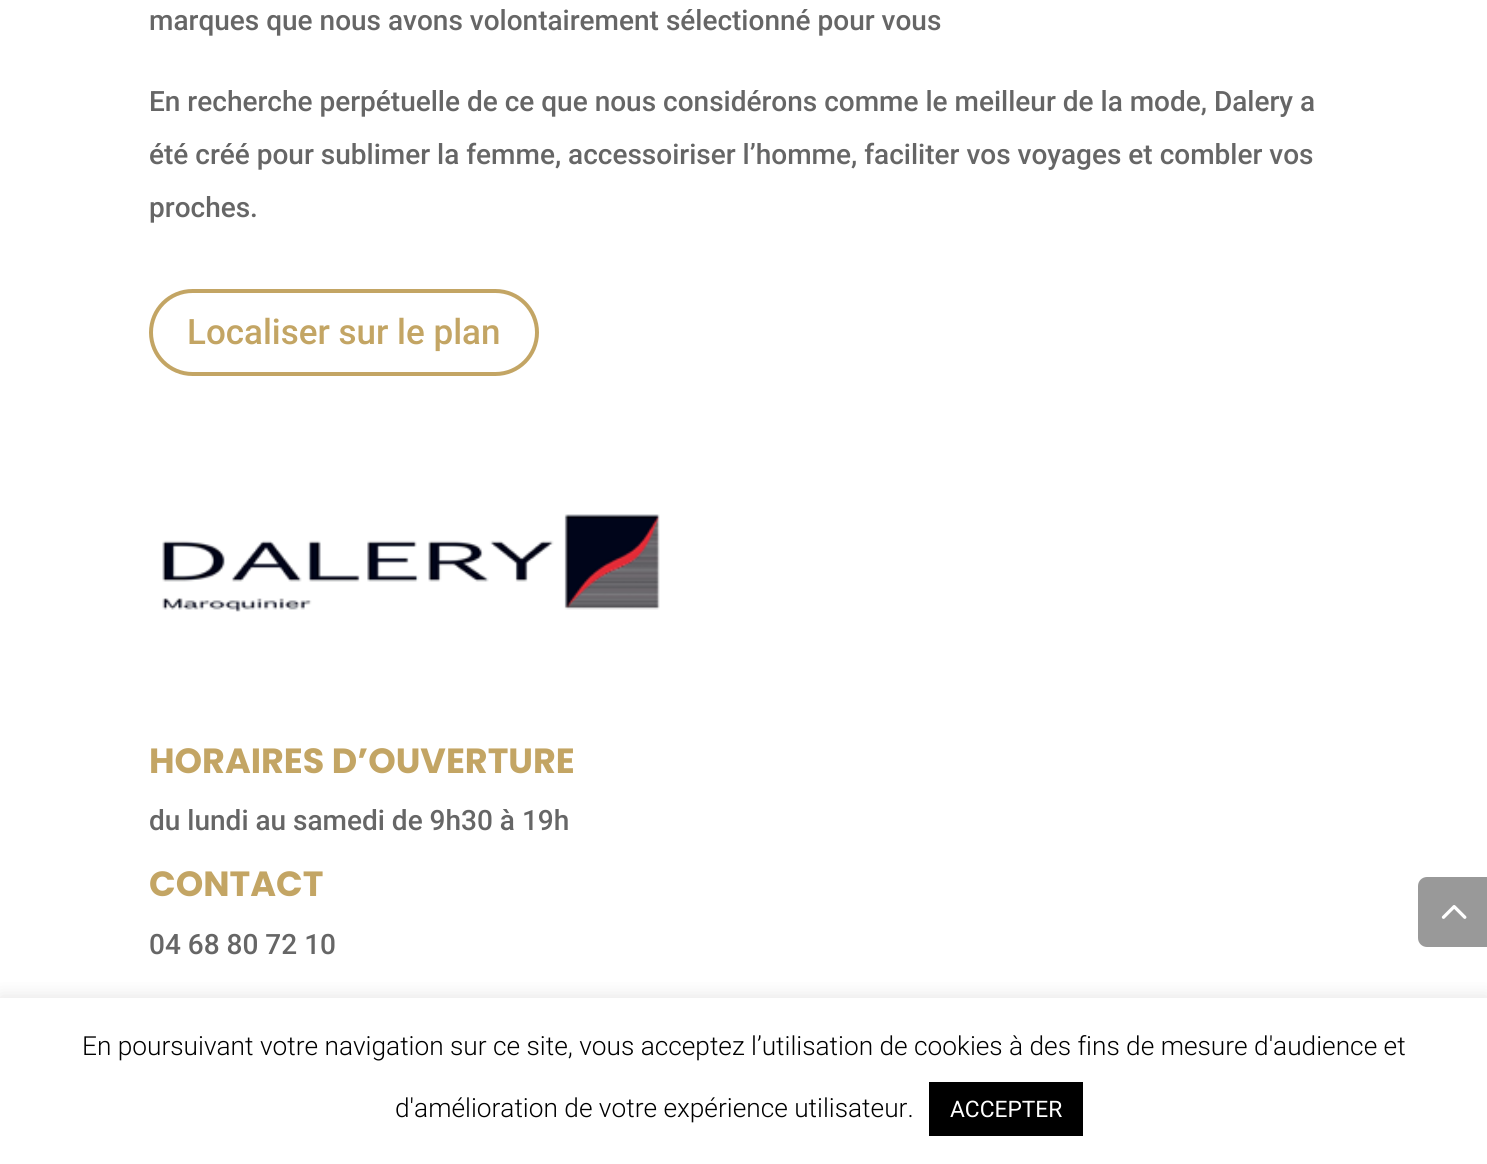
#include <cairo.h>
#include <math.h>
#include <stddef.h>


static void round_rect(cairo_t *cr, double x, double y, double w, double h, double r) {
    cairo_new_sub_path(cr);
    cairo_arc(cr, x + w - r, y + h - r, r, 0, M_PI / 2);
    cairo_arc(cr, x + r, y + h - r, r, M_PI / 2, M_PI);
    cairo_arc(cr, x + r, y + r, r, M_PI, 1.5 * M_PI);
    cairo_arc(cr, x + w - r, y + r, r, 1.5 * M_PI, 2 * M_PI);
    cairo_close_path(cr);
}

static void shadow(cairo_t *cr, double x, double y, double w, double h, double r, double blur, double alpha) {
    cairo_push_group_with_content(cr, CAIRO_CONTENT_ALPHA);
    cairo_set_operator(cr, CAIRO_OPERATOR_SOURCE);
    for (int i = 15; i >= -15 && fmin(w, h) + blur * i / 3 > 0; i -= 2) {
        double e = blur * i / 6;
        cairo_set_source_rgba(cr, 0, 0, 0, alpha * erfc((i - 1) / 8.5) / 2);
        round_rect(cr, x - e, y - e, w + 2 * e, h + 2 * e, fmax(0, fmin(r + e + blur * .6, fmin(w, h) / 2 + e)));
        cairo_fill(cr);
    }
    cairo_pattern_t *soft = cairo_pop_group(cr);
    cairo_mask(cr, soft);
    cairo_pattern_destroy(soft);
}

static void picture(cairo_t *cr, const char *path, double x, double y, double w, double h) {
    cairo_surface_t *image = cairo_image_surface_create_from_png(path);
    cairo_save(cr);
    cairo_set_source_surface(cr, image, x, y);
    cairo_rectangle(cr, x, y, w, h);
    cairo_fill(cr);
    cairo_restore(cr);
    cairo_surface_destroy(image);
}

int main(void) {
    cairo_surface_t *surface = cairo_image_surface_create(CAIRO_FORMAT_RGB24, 1487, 1164);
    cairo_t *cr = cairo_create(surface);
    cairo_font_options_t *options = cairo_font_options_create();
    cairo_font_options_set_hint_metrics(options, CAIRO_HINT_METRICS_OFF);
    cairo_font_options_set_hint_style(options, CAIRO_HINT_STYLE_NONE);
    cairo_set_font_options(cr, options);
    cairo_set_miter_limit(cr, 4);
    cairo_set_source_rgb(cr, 1, 1, 1);
    cairo_paint(cr);
    cairo_select_font_face(cr, "Roboto Medium", CAIRO_FONT_SLANT_NORMAL, CAIRO_FONT_WEIGHT_NORMAL);
    cairo_set_font_size(cr, 28);
    cairo_set_source_rgb(cr, 0.4, 0.4, 0.4);
    cairo_move_to(cr, 149, 30);
    cairo_show_text(cr, "marques que nous avons volontairement sélectionné pour vous");
    cairo_move_to(cr, 149, 111);
    cairo_show_text(cr, "En recherche perpétuelle de ce que nous considérons comme le meilleur de la mode, Dalery a");
    cairo_move_to(cr, 149, 164);
    cairo_show_text(cr, "été créé pour sublimer la femme, accessoiriser l’homme, faciliter vos voyages et combler vos");
    cairo_move_to(cr, 149, 217);
    cairo_show_text(cr, "proches.");
    round_rect(cr, 151, 291, 386, 83, 41.5);
    cairo_set_source_rgb(cr, 0.765, 0.647, 0.392);
    cairo_set_line_width(cr, 4);
    cairo_stroke(cr);
    cairo_set_font_size(cr, 35);
    cairo_move_to(cr, 187, 344);
    cairo_show_text(cr, "Localiser sur le plan");
    picture(cr, "img1.png", 162, 514, 498, 98);
    cairo_select_font_face(cr, "Poppins", CAIRO_FONT_SLANT_NORMAL, CAIRO_FONT_WEIGHT_BOLD);
    cairo_move_to(cr, 149, 773);
    cairo_show_text(cr, "HORAIRES D’OUVERTURE");
    cairo_select_font_face(cr, "Roboto Medium", CAIRO_FONT_SLANT_NORMAL, CAIRO_FONT_WEIGHT_NORMAL);
    cairo_set_font_size(cr, 28);
    cairo_set_source_rgb(cr, 0.4, 0.4, 0.4);
    cairo_move_to(cr, 149, 830);
    cairo_show_text(cr, "du lundi au samedi de 9h30 à 19h");
    cairo_select_font_face(cr, "Poppins", CAIRO_FONT_SLANT_NORMAL, CAIRO_FONT_WEIGHT_BOLD);
    cairo_set_font_size(cr, 35);
    cairo_set_source_rgb(cr, 0.765, 0.647, 0.392);
    cairo_move_to(cr, 149, 896);
    cairo_show_text(cr, "CONTACT");
    cairo_select_font_face(cr, "Roboto Medium", CAIRO_FONT_SLANT_NORMAL, CAIRO_FONT_WEIGHT_NORMAL);
    cairo_set_font_size(cr, 28);
    cairo_set_source_rgb(cr, 0.4, 0.4, 0.4);
    cairo_move_to(cr, 149, 954);
    cairo_show_text(cr, "04 68 80 72 10");
    cairo_set_source_rgb(cr, 0.6, 0.6, 0.6);
    cairo_new_path(cr);
    cairo_move_to(cr, 1427, 877);
    cairo_line_to(cr, 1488, 877);
    cairo_line_to(cr, 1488, 947);
    cairo_line_to(cr, 1427, 947);
    cairo_curve_to(cr, 1422, 947, 1418, 943, 1418, 938);
    cairo_line_to(cr, 1418, 886);
    cairo_curve_to(cr, 1418, 881, 1422, 877, 1427, 877);
    cairo_close_path(cr);
    cairo_fill(cr);
    picture(cr, "img2.png", 1441, 905, 26, 14);
    cairo_save(cr);
    cairo_rectangle(cr, 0, 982, 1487, 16);
    cairo_clip(cr);
    cairo_set_source_rgb(cr, 0.675, 0.671, 0.671);
    shadow(cr, 0, 996, 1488, 168, 0, 9, 0.3);
    cairo_restore(cr);
    cairo_select_font_face(cr, "Roboto Light", CAIRO_FONT_SLANT_NORMAL, CAIRO_FONT_WEIGHT_NORMAL);
    cairo_set_font_size(cr, 26.25);
    cairo_set_source_rgb(cr, 0, 0, 0);
    cairo_move_to(cr, 82, 1055);
    cairo_show_text(cr, "En poursuivant votre navigation sur ce site, vous acceptez l’utilisation de cookies à des fins de mesure d'audience et");
    cairo_move_to(cr, 395, 1117);
    cairo_show_text(cr, "d'amélioration de votre expérience utilisateur.");
    cairo_rectangle(cr, 929, 1082, 154, 54);
    cairo_fill(cr);
    cairo_select_font_face(cr, "Roboto", CAIRO_FONT_SLANT_NORMAL, CAIRO_FONT_WEIGHT_NORMAL);
    cairo_set_font_size(cr, 22.75);
    cairo_set_source_rgb(cr, 1, 1, 1);
    cairo_move_to(cr, 950, 1117);
    cairo_show_text(cr, "ACCEPTER");
    cairo_surface_write_to_png(surface, "page.png");
    cairo_font_options_destroy(options);
    cairo_destroy(cr);
    cairo_surface_destroy(surface);
    return 0;
}
